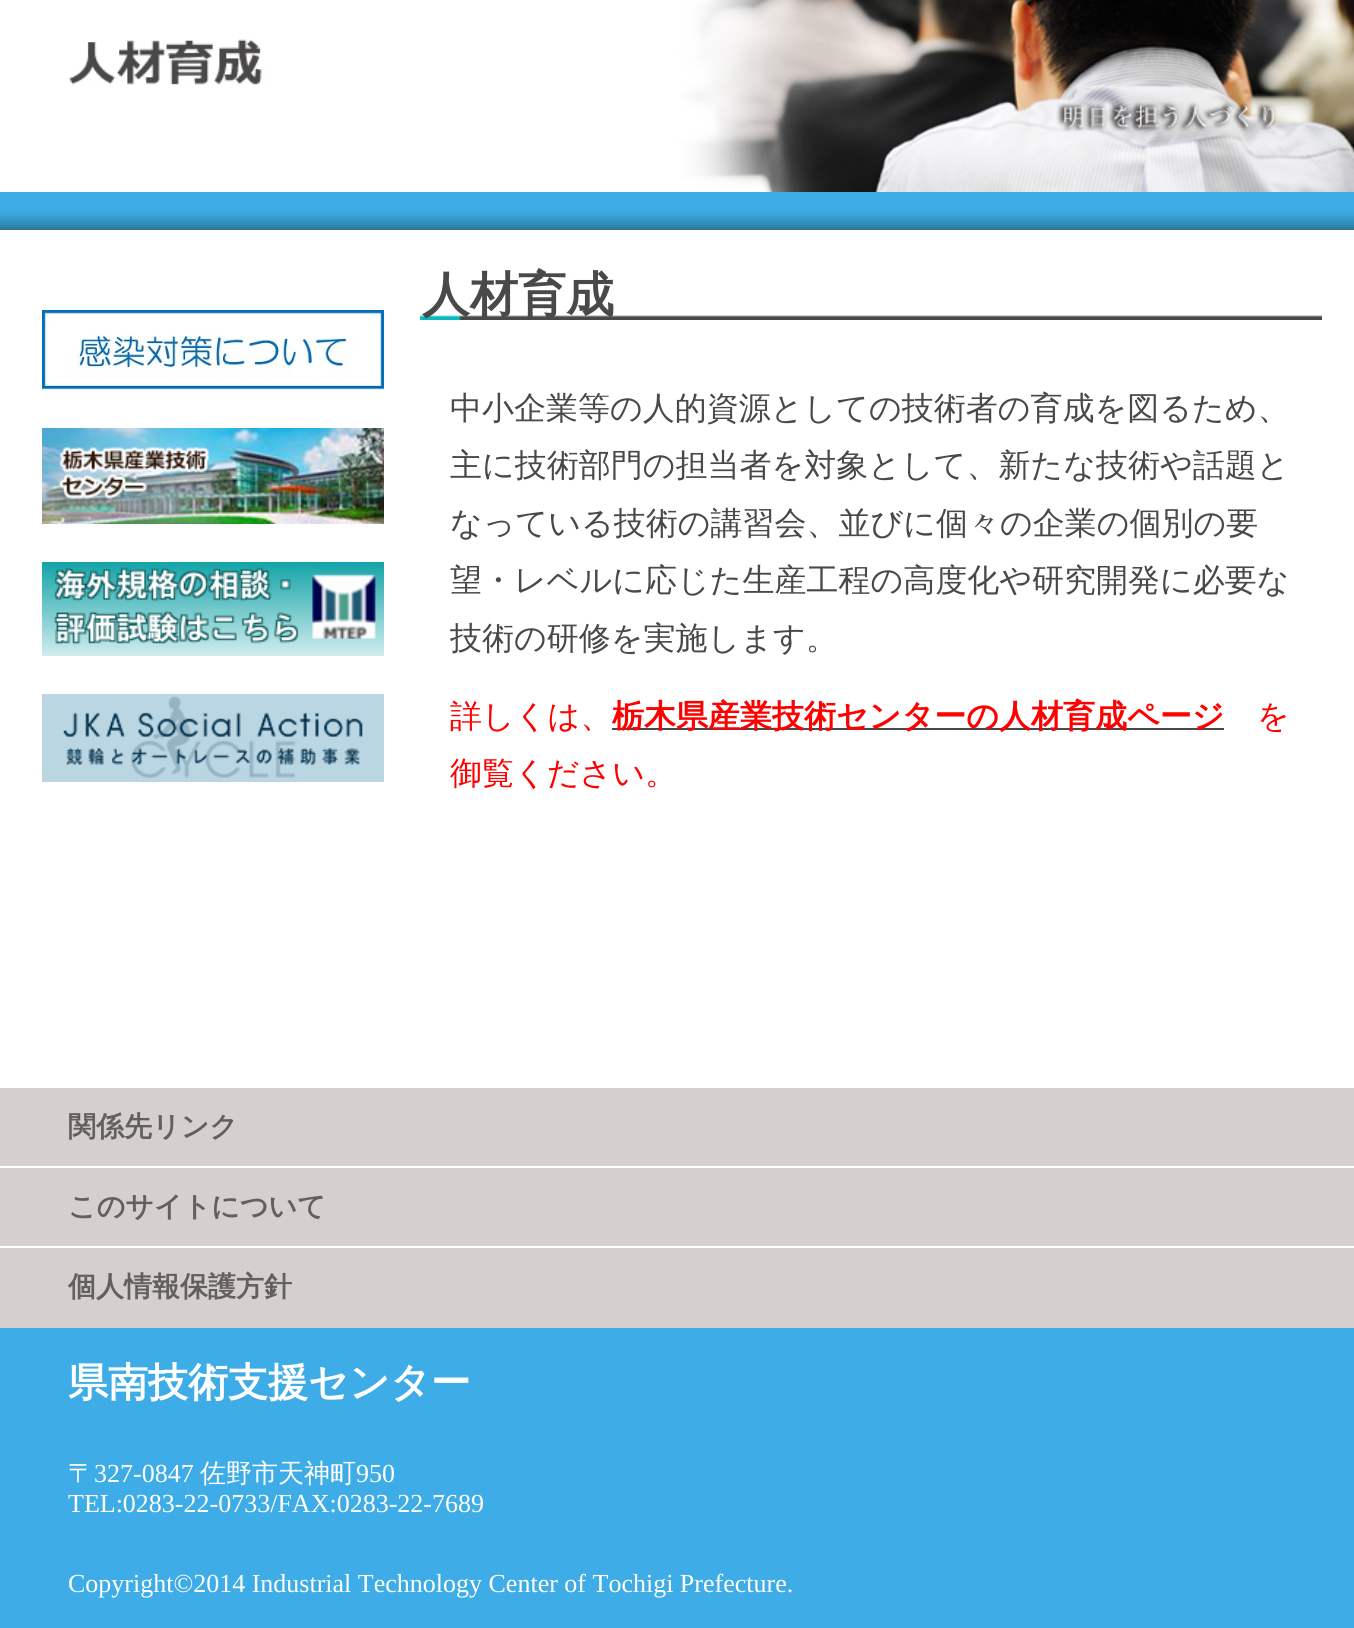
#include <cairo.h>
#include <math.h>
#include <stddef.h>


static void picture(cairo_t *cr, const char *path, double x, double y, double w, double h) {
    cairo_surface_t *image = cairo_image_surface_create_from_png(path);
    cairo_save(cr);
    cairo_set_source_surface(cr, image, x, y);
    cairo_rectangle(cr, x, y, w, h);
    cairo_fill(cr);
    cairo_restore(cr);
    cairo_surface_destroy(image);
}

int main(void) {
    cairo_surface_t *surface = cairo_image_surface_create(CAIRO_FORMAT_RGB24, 1354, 1628);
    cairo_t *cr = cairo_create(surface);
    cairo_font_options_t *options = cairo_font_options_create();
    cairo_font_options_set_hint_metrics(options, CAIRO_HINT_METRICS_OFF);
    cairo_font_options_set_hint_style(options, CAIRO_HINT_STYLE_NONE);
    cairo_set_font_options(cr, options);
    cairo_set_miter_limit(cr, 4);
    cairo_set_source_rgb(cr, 1, 1, 1);
    cairo_paint(cr);
    picture(cr, "img1.png", 0, 192, 1354, 38);
    picture(cr, "img2.png", 0, 0, 1354, 192);
    picture(cr, "img3.png", 42, 310, 342, 80);
    picture(cr, "img4.png", 42, 428, 342, 96);
    picture(cr, "img5.png", 42, 562, 342, 94);
    picture(cr, "img6.png", 42, 694, 342, 88);
    picture(cr, "img7.png", 420, 315, 902, 5);
    cairo_select_font_face(cr, "WenQuanYi Zen Hei", CAIRO_FONT_SLANT_NORMAL, CAIRO_FONT_WEIGHT_BOLD);
    cairo_set_font_size(cr, 48);
    cairo_set_source_rgb(cr, 0.29, 0.282, 0.282);
    cairo_move_to(cr, 422, 311);
    cairo_show_text(cr, "人材育成");
    cairo_select_font_face(cr, "WenQuanYi Zen Hei Medium", CAIRO_FONT_SLANT_NORMAL, CAIRO_FONT_WEIGHT_NORMAL);
    cairo_set_font_size(cr, 32);
    cairo_move_to(cr, 450, 419);
    cairo_show_text(cr, "中小企業等の人的資源としての技術者の育成を図るため、");
    cairo_move_to(cr, 450, 476);
    cairo_show_text(cr, "主に技術部門の担当者を対象として、新たな技術や話題と");
    cairo_move_to(cr, 450, 534);
    cairo_show_text(cr, "なっている技術の講習会、並びに個々の企業の個別の要");
    cairo_move_to(cr, 450, 591);
    cairo_show_text(cr, "望・レベルに応じた生産工程の高度化や研究開発に必要な");
    cairo_move_to(cr, 450, 649);
    cairo_show_text(cr, "技術の研修を実施します。");
    cairo_set_source_rgb(cr, 1, 0, 0);
    cairo_move_to(cr, 450, 727);
    cairo_show_text(cr, "詳しくは、");
    cairo_set_source_rgb(cr, 0.29, 0.282, 0.282);
    cairo_rectangle(cr, 612, 728, 612, 2);
    cairo_fill(cr);
    cairo_select_font_face(cr, "WenQuanYi Zen Hei", CAIRO_FONT_SLANT_NORMAL, CAIRO_FONT_WEIGHT_BOLD);
    cairo_set_source_rgb(cr, 1, 0, 0);
    cairo_move_to(cr, 612, 727);
    cairo_show_text(cr, "栃木県産業技術センターの人材育成ページ");
    cairo_select_font_face(cr, "WenQuanYi Zen Hei Medium", CAIRO_FONT_SLANT_NORMAL, CAIRO_FONT_WEIGHT_NORMAL);
    cairo_move_to(cr, 1257, 727);
    cairo_show_text(cr, "を");
    cairo_move_to(cr, 450, 784);
    cairo_show_text(cr, "御覧ください。");
    cairo_set_source_rgb(cr, 0.839, 0.812, 0.812);
    cairo_rectangle(cr, 0, 1088, 1354, 240);
    cairo_fill(cr);
    cairo_set_source_rgb(cr, 1, 1, 1);
    cairo_rectangle(cr, 0, 1166, 1354, 2);
    cairo_fill(cr);
    cairo_select_font_face(cr, "WenQuanYi Zen Hei", CAIRO_FONT_SLANT_NORMAL, CAIRO_FONT_WEIGHT_BOLD);
    cairo_set_font_size(cr, 28);
    cairo_set_source_rgb(cr, 0.384, 0.373, 0.373);
    cairo_move_to(cr, 68, 1136);
    cairo_show_text(cr, "関係先リンク");
    cairo_set_source_rgb(cr, 1, 1, 1);
    cairo_rectangle(cr, 0, 1246, 1354, 2);
    cairo_fill(cr);
    cairo_set_source_rgb(cr, 0.384, 0.373, 0.373);
    cairo_move_to(cr, 68, 1216);
    cairo_show_text(cr, "このサイトについて");
    cairo_move_to(cr, 68, 1296);
    cairo_show_text(cr, "個人情報保護方針");
    cairo_set_source_rgb(cr, 0.243, 0.678, 0.906);
    cairo_rectangle(cr, 0, 1328, 1354, 300);
    cairo_fill(cr);
    cairo_set_font_size(cr, 40);
    cairo_set_source_rgb(cr, 1, 1, 1);
    cairo_move_to(cr, 68, 1396);
    cairo_show_text(cr, "県南技術支援センター");
    cairo_select_font_face(cr, "WenQuanYi Zen Hei Medium", CAIRO_FONT_SLANT_NORMAL, CAIRO_FONT_WEIGHT_NORMAL);
    cairo_set_font_size(cr, 26);
    cairo_move_to(cr, 68, 1482);
    cairo_show_text(cr, "〒");
    cairo_select_font_face(cr, "Liberation Serif", CAIRO_FONT_SLANT_NORMAL, CAIRO_FONT_WEIGHT_NORMAL);
    cairo_move_to(cr, 94, 1482);
    cairo_show_text(cr, "327-0847");
    cairo_select_font_face(cr, "WenQuanYi Zen Hei Medium", CAIRO_FONT_SLANT_NORMAL, CAIRO_FONT_WEIGHT_NORMAL);
    cairo_move_to(cr, 200, 1482);
    cairo_show_text(cr, "佐野市天神町");
    cairo_select_font_face(cr, "Liberation Serif", CAIRO_FONT_SLANT_NORMAL, CAIRO_FONT_WEIGHT_NORMAL);
    cairo_move_to(cr, 356, 1482);
    cairo_show_text(cr, "950");
    cairo_move_to(cr, 68, 1512);
    cairo_show_text(cr, "TEL:0283-22-0733/FAX:0283-22-7689");
    cairo_move_to(cr, 68, 1592);
    cairo_show_text(cr, "Copyright©2014 Industrial Technology Center of Tochigi Prefecture.");
    cairo_surface_write_to_png(surface, "page.png");
    cairo_font_options_destroy(options);
    cairo_destroy(cr);
    cairo_surface_destroy(surface);
    return 0;
}
